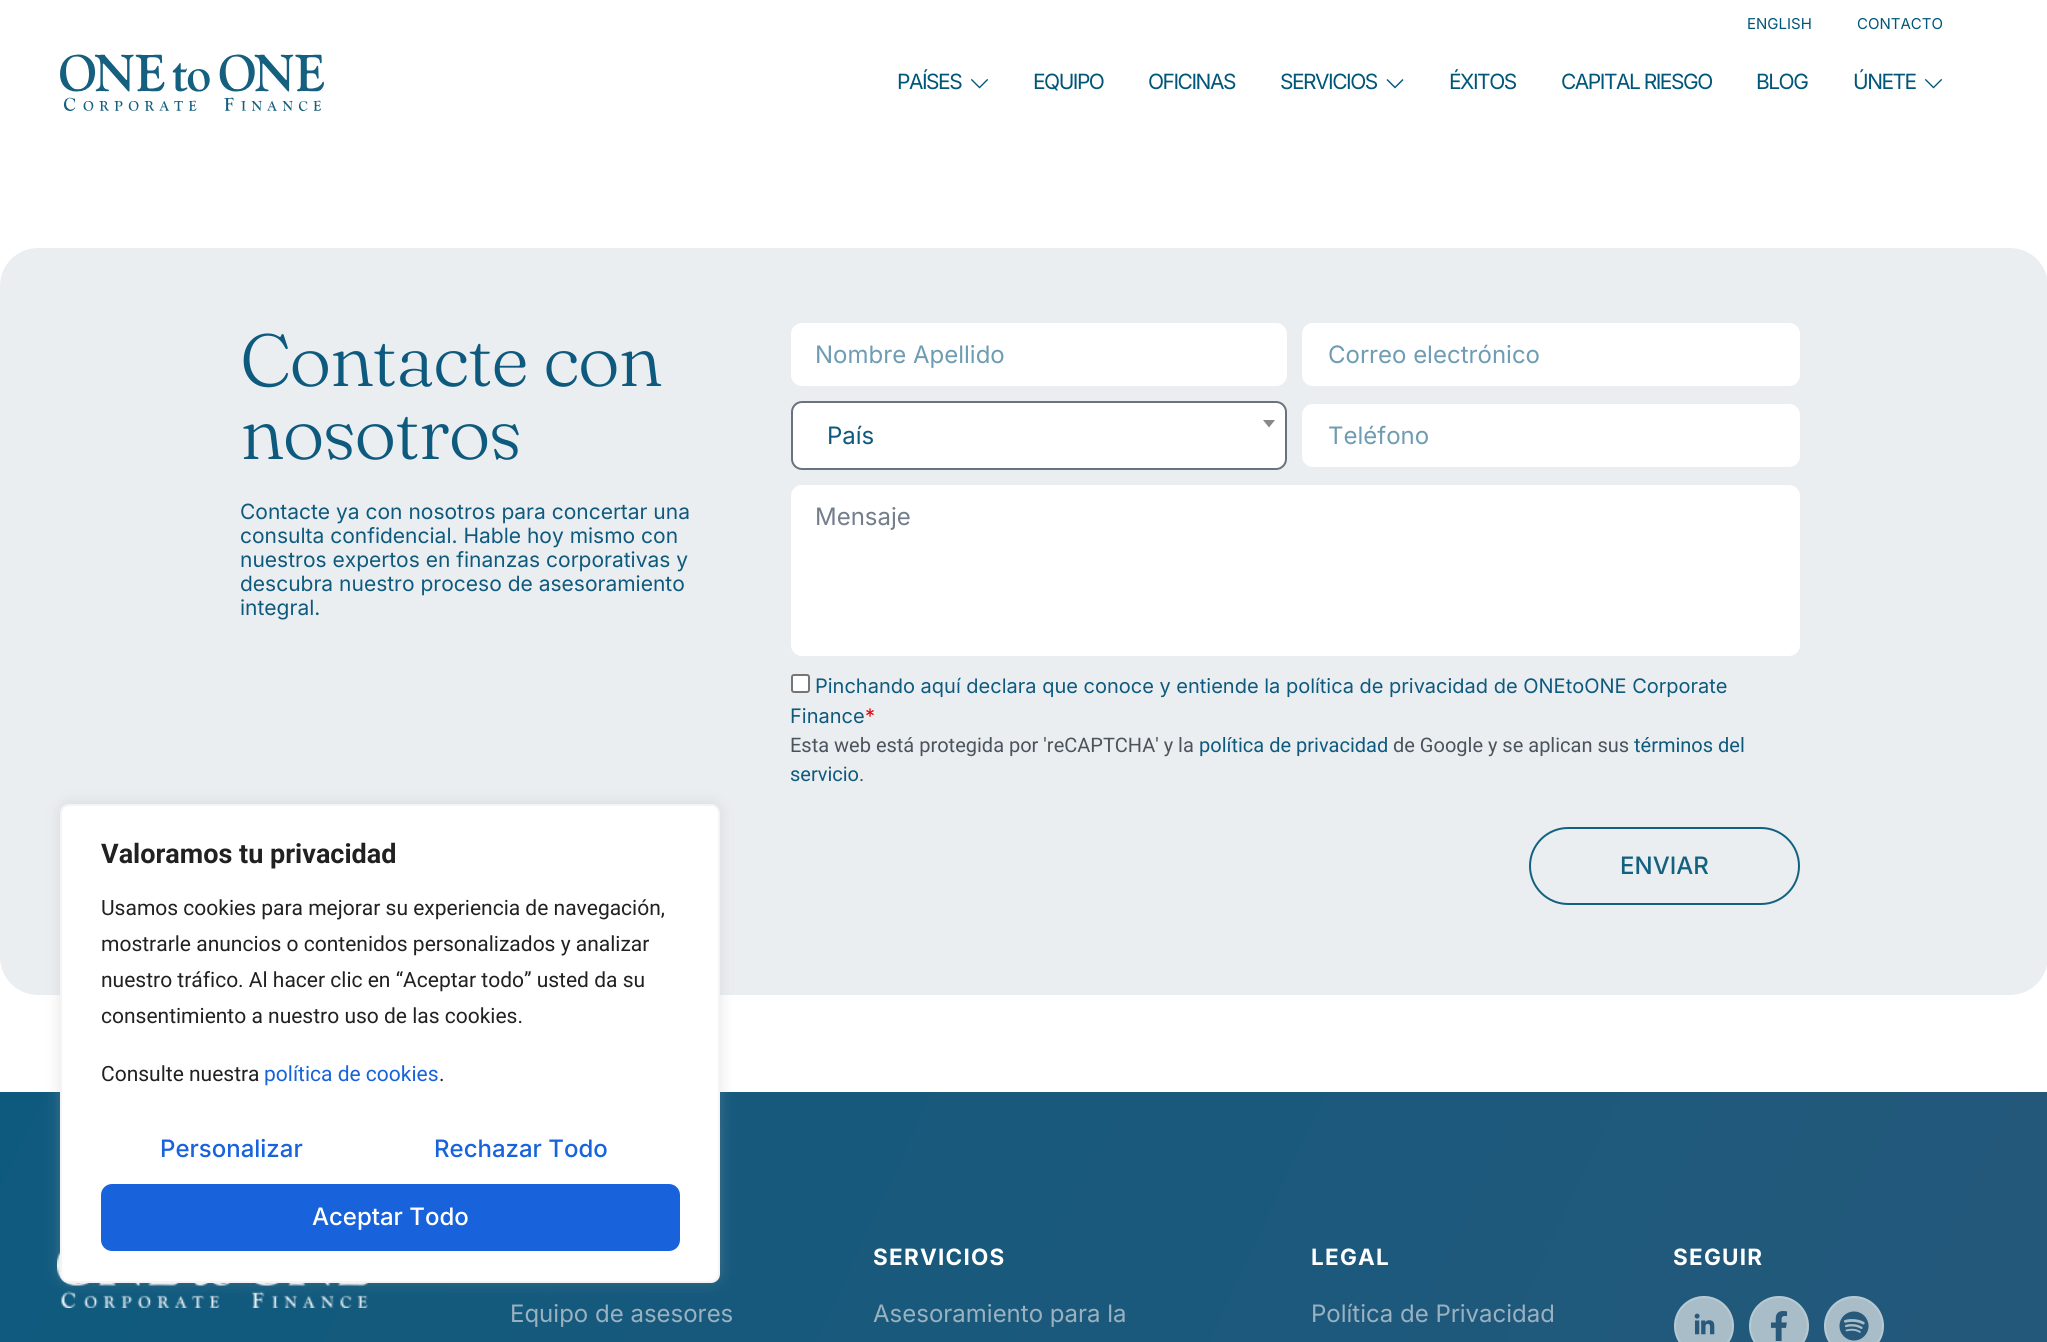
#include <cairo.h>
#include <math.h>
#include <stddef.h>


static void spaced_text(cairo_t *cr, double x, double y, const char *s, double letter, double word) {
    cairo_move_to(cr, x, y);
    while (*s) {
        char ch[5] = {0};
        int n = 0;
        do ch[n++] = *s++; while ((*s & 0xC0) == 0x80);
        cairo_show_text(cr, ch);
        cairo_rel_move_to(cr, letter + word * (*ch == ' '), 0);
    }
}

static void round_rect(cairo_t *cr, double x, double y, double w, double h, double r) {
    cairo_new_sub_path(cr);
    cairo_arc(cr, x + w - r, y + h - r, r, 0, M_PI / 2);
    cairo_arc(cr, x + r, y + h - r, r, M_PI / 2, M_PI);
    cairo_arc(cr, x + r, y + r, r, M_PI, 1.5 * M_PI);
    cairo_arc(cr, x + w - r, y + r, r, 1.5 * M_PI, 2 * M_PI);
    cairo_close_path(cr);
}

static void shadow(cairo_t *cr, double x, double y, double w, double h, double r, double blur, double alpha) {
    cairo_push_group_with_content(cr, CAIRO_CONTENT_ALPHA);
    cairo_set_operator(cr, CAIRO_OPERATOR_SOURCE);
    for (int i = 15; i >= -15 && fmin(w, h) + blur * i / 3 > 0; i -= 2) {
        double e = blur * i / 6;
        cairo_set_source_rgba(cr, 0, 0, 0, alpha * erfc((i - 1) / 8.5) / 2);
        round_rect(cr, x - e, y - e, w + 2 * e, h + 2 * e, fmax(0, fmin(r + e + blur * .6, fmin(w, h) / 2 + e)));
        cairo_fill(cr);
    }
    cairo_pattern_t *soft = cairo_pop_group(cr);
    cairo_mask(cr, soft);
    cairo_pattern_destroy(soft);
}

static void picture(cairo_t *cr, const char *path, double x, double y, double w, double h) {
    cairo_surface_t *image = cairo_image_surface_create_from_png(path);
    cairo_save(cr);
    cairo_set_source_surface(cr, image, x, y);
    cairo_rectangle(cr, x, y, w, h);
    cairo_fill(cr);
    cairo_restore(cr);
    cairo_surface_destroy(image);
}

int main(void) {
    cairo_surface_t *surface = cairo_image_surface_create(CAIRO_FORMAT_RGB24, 2047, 1342);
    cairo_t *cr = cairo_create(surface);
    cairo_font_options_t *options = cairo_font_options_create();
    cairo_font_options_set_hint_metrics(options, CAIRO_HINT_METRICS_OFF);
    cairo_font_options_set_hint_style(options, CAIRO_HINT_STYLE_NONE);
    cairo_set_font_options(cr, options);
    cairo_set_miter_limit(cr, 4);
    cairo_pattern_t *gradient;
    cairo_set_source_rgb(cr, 1, 1, 1);
    cairo_paint(cr);
    cairo_select_font_face(cr, "Inter", CAIRO_FONT_SLANT_NORMAL, CAIRO_FONT_WEIGHT_NORMAL);
    cairo_set_font_size(cr, 15);
    cairo_set_source_rgb(cr, 0, 0.337, 0.471);
    cairo_move_to(cr, 1747, 29);
    cairo_show_text(cr, "ENGLISH");
    cairo_move_to(cr, 1857, 29);
    cairo_show_text(cr, "CONTACTO");
    picture(cr, "img1.png", 60, 54, 264, 57);
    cairo_set_font_size(cr, 21);
    spaced_text(cr, 897, 89, "PAÍSES", -1.5, 0);
    picture(cr, "img2.png", 970, 79, 19, 10);
    spaced_text(cr, 1033, 89, "EQUIPO", -1.5, 0);
    spaced_text(cr, 1148, 89, "OFICINAS", -1.5, 0);
    spaced_text(cr, 1280, 89, "SERVICIOS", -1.5, 0);
    cairo_new_path(cr);
    cairo_move_to(cr, 1387.5, 79);
    cairo_line_to(cr, 1386.5, 80);
    cairo_line_to(cr, 1395, 88.5);
    cairo_line_to(cr, 1403.5, 80);
    cairo_line_to(cr, 1402.5, 79);
    cairo_line_to(cr, 1395, 86.5);
    cairo_close_path(cr);
    cairo_fill(cr);
    spaced_text(cr, 1449, 89, "ÉXITOS", -1.5, 0);
    spaced_text(cr, 1561, 89, "CAPITAL RIESGO", -1.5, 0);
    spaced_text(cr, 1756, 89, "BLOG", -1.5, 0);
    spaced_text(cr, 1853, 89, "ÚNETE", -1.5, 0);
    picture(cr, "img2.png", 1924, 79, 19, 10);
    cairo_set_source_rgb(cr, 0.918, 0.933, 0.941);
    round_rect(cr, 0, 248, 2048, 747, 38);
    cairo_fill(cr);
    cairo_select_font_face(cr, "Fraunces Light", CAIRO_FONT_SLANT_NORMAL, CAIRO_FONT_WEIGHT_NORMAL);
    cairo_set_font_size(cr, 73.5);
    cairo_set_source_rgb(cr, 0.055, 0.353, 0.494);
    spaced_text(cr, 240, 386, "Contacte con", -1.5, 0);
    spaced_text(cr, 240, 459, "nosotros", -1.5, 0);
    cairo_select_font_face(cr, "Inter", CAIRO_FONT_SLANT_NORMAL, CAIRO_FONT_WEIGHT_NORMAL);
    cairo_set_font_size(cr, 21);
    cairo_move_to(cr, 240, 519);
    cairo_show_text(cr, "Contacte ya con nosotros para concertar una");
    cairo_move_to(cr, 240, 543);
    cairo_show_text(cr, "consulta confidencial. Hable hoy mismo con");
    cairo_move_to(cr, 240, 567);
    cairo_show_text(cr, "nuestros expertos en finanzas corporativas y");
    cairo_move_to(cr, 240, 591);
    cairo_show_text(cr, "descubra nuestro proceso de asesoramiento");
    cairo_move_to(cr, 240, 615);
    cairo_show_text(cr, "integral.");
    cairo_set_source_rgb(cr, 1, 1, 1);
    round_rect(cr, 791, 323, 496, 63, 11);
    cairo_fill(cr);
    cairo_set_font_size(cr, 24);
    cairo_set_source_rgb(cr, 0.431, 0.612, 0.698);
    cairo_move_to(cr, 815, 363);
    cairo_show_text(cr, "Nombre Apellido");
    cairo_set_source_rgb(cr, 1, 1, 1);
    round_rect(cr, 1302, 323, 498, 63, 11);
    cairo_fill(cr);
    cairo_set_source_rgb(cr, 0.431, 0.612, 0.698);
    cairo_move_to(cr, 1328, 363);
    cairo_show_text(cr, "Correo electrónico");
    cairo_set_source_rgb(cr, 1, 1, 1);
    round_rect(cr, 792, 402, 494, 67, 10);
    cairo_fill_preserve(cr);
    cairo_set_source_rgb(cr, 0.412, 0.447, 0.49);
    cairo_stroke(cr);
    cairo_set_source_rgb(cr, 0.533, 0.533, 0.533);
    cairo_new_path(cr);
    cairo_move_to(cr, 1263, 420);
    cairo_line_to(cr, 1275, 420);
    cairo_line_to(cr, 1269, 427.5);
    cairo_close_path(cr);
    cairo_fill(cr);
    cairo_set_source_rgb(cr, 0.055, 0.353, 0.494);
    cairo_move_to(cr, 827, 444);
    cairo_show_text(cr, "País");
    cairo_set_source_rgb(cr, 1, 1, 1);
    round_rect(cr, 1302, 404, 498, 63, 11);
    cairo_fill(cr);
    cairo_set_source_rgb(cr, 0.431, 0.612, 0.698);
    cairo_move_to(cr, 1328, 444);
    cairo_show_text(cr, "Teléfono");
    cairo_set_source_rgb(cr, 1, 1, 1);
    round_rect(cr, 791, 485, 1009, 171, 11);
    cairo_fill(cr);
    cairo_set_source_rgb(cr, 0.451, 0.49, 0.549);
    cairo_move_to(cr, 815, 525);
    cairo_show_text(cr, "Mensaje");
    cairo_set_source_rgb(cr, 1, 1, 1);
    round_rect(cr, 792, 675, 17, 17, 2);
    cairo_fill_preserve(cr);
    cairo_set_source_rgb(cr, 0.463, 0.463, 0.463);
    cairo_stroke(cr);
    cairo_set_font_size(cr, 20);
    cairo_set_source_rgb(cr, 0.055, 0.353, 0.494);
    cairo_move_to(cr, 815, 693);
    cairo_show_text(cr, "Pinchando aquí declara que conoce y entiende la política de privacidad de ONEtoONE Corporate");
    cairo_move_to(cr, 790, 723);
    cairo_show_text(cr, "Finance");
    cairo_set_source_rgb(cr, 0.933, 0, 0);
    cairo_move_to(cr, 865, 723);
    cairo_show_text(cr, "*");
    cairo_select_font_face(cr, "Roboto", CAIRO_FONT_SLANT_NORMAL, CAIRO_FONT_WEIGHT_NORMAL);
    cairo_set_source_rgb(cr, 0.294, 0.325, 0.365);
    cairo_move_to(cr, 790, 752);
    cairo_show_text(cr, "Esta web está protegida por 'reCAPTCHA' y la");
    cairo_set_source_rgb(cr, 0.055, 0.353, 0.494);
    cairo_move_to(cr, 1199, 752);
    cairo_show_text(cr, "política de privacidad");
    cairo_set_source_rgb(cr, 0.294, 0.325, 0.365);
    cairo_move_to(cr, 1393, 752);
    cairo_show_text(cr, "de Google y se aplican sus");
    cairo_set_source_rgb(cr, 0.055, 0.353, 0.494);
    cairo_move_to(cr, 1634, 752);
    cairo_show_text(cr, "términos del");
    cairo_move_to(cr, 790, 781);
    cairo_show_text(cr, "servicio");
    cairo_set_source_rgb(cr, 0.294, 0.325, 0.365);
    cairo_move_to(cr, 859, 781);
    cairo_show_text(cr, ".");
    round_rect(cr, 1530, 828, 269, 76, 38);
    cairo_set_source_rgb(cr, 0.075, 0.38, 0.502);
    cairo_stroke(cr);
    cairo_select_font_face(cr, "Inter Medium", CAIRO_FONT_SLANT_NORMAL, CAIRO_FONT_WEIGHT_NORMAL);
    cairo_set_font_size(cr, 24);
    cairo_move_to(cr, 1620, 874);
    cairo_show_text(cr, "ENVIAR");
    gradient = cairo_pattern_create_linear(-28, 1151, 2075, 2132);
    cairo_pattern_add_color_stop_rgba(gradient, 0, 0.055, 0.353, 0.494, 1);
    cairo_pattern_add_color_stop_rgba(gradient, 1, 0.157, 0.345, 0.478, 1);
    cairo_set_source(cr, gradient);
    cairo_pattern_destroy(gradient);
    cairo_rectangle(cr, 0, 1092, 2047, 250);
    cairo_fill(cr);
    picture(cr, "img3.png", 57, 1251, 311, 57);
    cairo_select_font_face(cr, "Inter", CAIRO_FONT_SLANT_NORMAL, CAIRO_FONT_WEIGHT_NORMAL);
    cairo_set_source_rgb(cr, 0.604, 0.694, 0.749);
    cairo_move_to(cr, 510, 1322);
    cairo_show_text(cr, "Equipo de asesores");
    cairo_select_font_face(cr, "Inter", CAIRO_FONT_SLANT_NORMAL, CAIRO_FONT_WEIGHT_BOLD);
    cairo_set_font_size(cr, 22.5);
    cairo_set_source_rgb(cr, 1, 1, 1);
    spaced_text(cr, 873, 1265, "SERVICIOS", 1.25, 0);
    cairo_select_font_face(cr, "Inter", CAIRO_FONT_SLANT_NORMAL, CAIRO_FONT_WEIGHT_NORMAL);
    cairo_set_font_size(cr, 24);
    cairo_set_source_rgb(cr, 0.604, 0.694, 0.749);
    cairo_move_to(cr, 873, 1322);
    cairo_show_text(cr, "Asesoramiento para la");
    cairo_select_font_face(cr, "Inter", CAIRO_FONT_SLANT_NORMAL, CAIRO_FONT_WEIGHT_BOLD);
    cairo_set_font_size(cr, 22.5);
    cairo_set_source_rgb(cr, 1, 1, 1);
    spaced_text(cr, 1311, 1265, "LEGAL", 1.25, 0);
    cairo_select_font_face(cr, "Inter", CAIRO_FONT_SLANT_NORMAL, CAIRO_FONT_WEIGHT_NORMAL);
    cairo_set_font_size(cr, 24);
    cairo_set_source_rgb(cr, 0.604, 0.694, 0.749);
    cairo_move_to(cr, 1311, 1322);
    cairo_show_text(cr, "Política de Privacidad");
    cairo_select_font_face(cr, "Inter", CAIRO_FONT_SLANT_NORMAL, CAIRO_FONT_WEIGHT_BOLD);
    cairo_set_font_size(cr, 22.5);
    cairo_set_source_rgb(cr, 1, 1, 1);
    spaced_text(cr, 1673, 1265, "SEGUIR", 1.25, 0);
    cairo_set_source_rgb(cr, 0.659, 0.741, 0.784);
    cairo_new_path(cr);
    cairo_arc(cr, 1704, 1326, 30, 0, 2 * M_PI);
    cairo_fill(cr);
    cairo_arc(cr, 1704, 1326, 29, 0, 2 * M_PI);
    cairo_set_source_rgba(cr, 1, 1, 1, 0.18);
    cairo_stroke(cr);
    picture(cr, "img4.png", 1694, 1313, 21, 22);
    cairo_set_source_rgb(cr, 0.659, 0.741, 0.784);
    cairo_arc(cr, 1779, 1326, 30, 0, 2 * M_PI);
    cairo_fill(cr);
    cairo_arc(cr, 1779, 1326, 29, 0, 2 * M_PI);
    cairo_set_source_rgba(cr, 1, 1, 1, 0.18);
    cairo_stroke(cr);
    picture(cr, "img5.png", 1770, 1311, 18, 30);
    cairo_set_source_rgb(cr, 0.659, 0.741, 0.784);
    cairo_arc(cr, 1854, 1326, 30, 0, 2 * M_PI);
    cairo_fill(cr);
    cairo_arc(cr, 1854, 1326, 29, 0, 2 * M_PI);
    cairo_set_source_rgba(cr, 1, 1, 1, 0.18);
    cairo_stroke(cr);
    picture(cr, "img6.png", 1839, 1311, 30, 30);
    cairo_set_source_rgb(cr, 0.675, 0.671, 0.671);
    shadow(cr, 60, 803, 660, 478, 9, 7.5, 0.3);
    cairo_set_source_rgb(cr, 1, 1, 1);
    round_rect(cr, 61, 805, 658, 477, 8);
    cairo_fill_preserve(cr);
    cairo_set_source_rgb(cr, 0.957, 0.957, 0.957);
    cairo_stroke(cr);
    cairo_select_font_face(cr, "Roboto", CAIRO_FONT_SLANT_NORMAL, CAIRO_FONT_WEIGHT_BOLD);
    cairo_set_font_size(cr, 27);
    cairo_set_source_rgb(cr, 0.129, 0.129, 0.129);
    cairo_move_to(cr, 101, 863);
    cairo_show_text(cr, "Valoramos tu privacidad");
    cairo_select_font_face(cr, "Roboto", CAIRO_FONT_SLANT_NORMAL, CAIRO_FONT_WEIGHT_NORMAL);
    cairo_set_font_size(cr, 21);
    cairo_move_to(cr, 101, 915);
    cairo_show_text(cr, "Usamos cookies para mejorar su experiencia de navegación,");
    cairo_move_to(cr, 101, 951);
    cairo_show_text(cr, "mostrarle anuncios o contenidos personalizados y analizar");
    cairo_move_to(cr, 101, 987);
    cairo_show_text(cr, "nuestro tráfico. Al hacer clic en “Aceptar todo” usted da su");
    cairo_move_to(cr, 101, 1023);
    cairo_show_text(cr, "consentimiento a nuestro uso de las cookies.");
    cairo_move_to(cr, 101, 1081);
    cairo_show_text(cr, "Consulte nuestra");
    cairo_set_source_rgb(cr, 0.094, 0.388, 0.863);
    cairo_move_to(cr, 264, 1081);
    cairo_show_text(cr, "política de cookies");
    cairo_set_source_rgb(cr, 0.129, 0.129, 0.129);
    cairo_move_to(cr, 439, 1081);
    cairo_show_text(cr, ".");
    cairo_select_font_face(cr, "Inter Medium", CAIRO_FONT_SLANT_NORMAL, CAIRO_FONT_WEIGHT_NORMAL);
    cairo_set_font_size(cr, 24);
    cairo_set_source_rgb(cr, 0.094, 0.388, 0.863);
    cairo_move_to(cr, 160, 1157);
    cairo_show_text(cr, "Personalizar");
    cairo_move_to(cr, 434, 1157);
    cairo_show_text(cr, "Rechazar Todo");
    round_rect(cr, 101, 1184, 579, 67, 11);
    cairo_fill(cr);
    cairo_set_source_rgb(cr, 1, 1, 1);
    cairo_move_to(cr, 312, 1225);
    cairo_show_text(cr, "Aceptar Todo");
    cairo_surface_write_to_png(surface, "page.png");
    cairo_font_options_destroy(options);
    cairo_destroy(cr);
    cairo_surface_destroy(surface);
    return 0;
}
